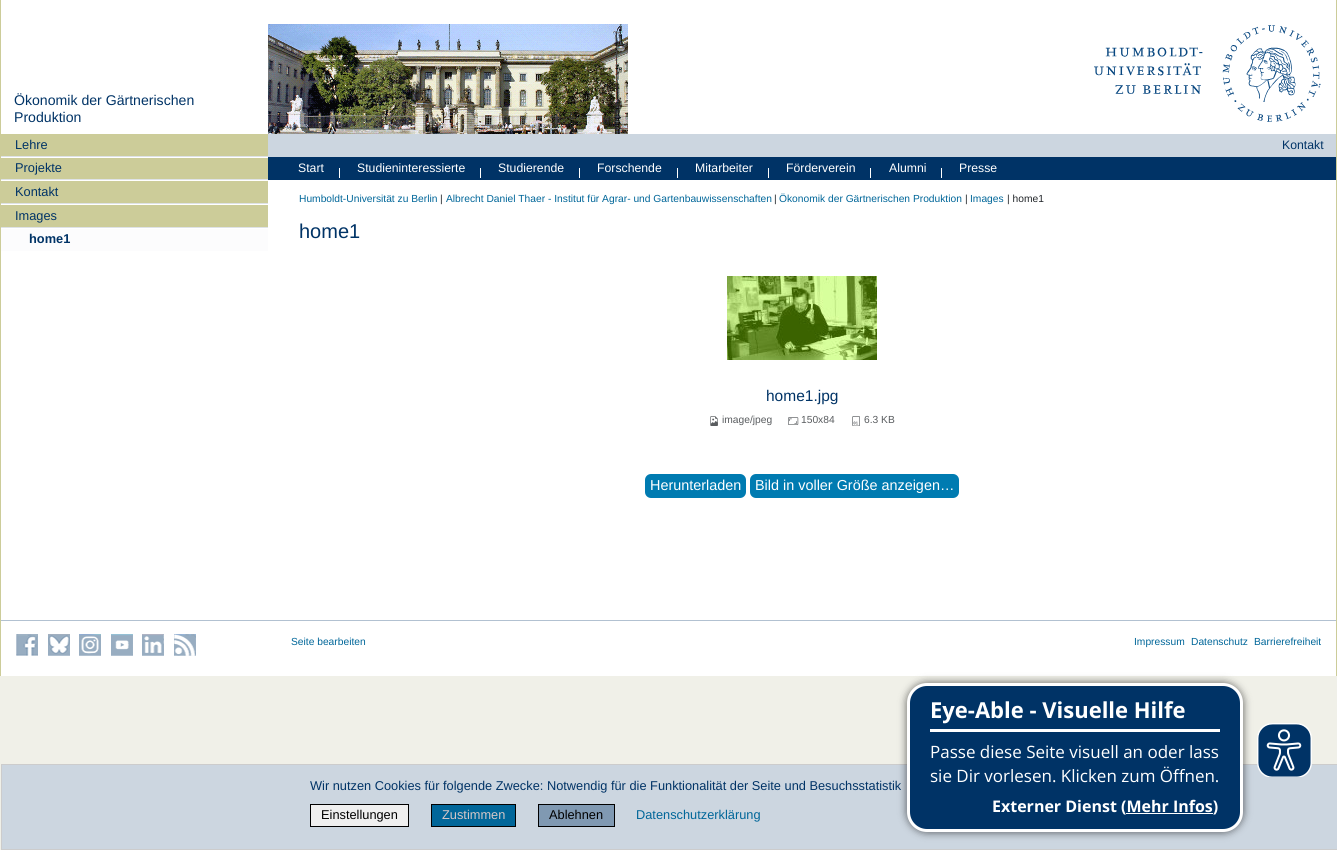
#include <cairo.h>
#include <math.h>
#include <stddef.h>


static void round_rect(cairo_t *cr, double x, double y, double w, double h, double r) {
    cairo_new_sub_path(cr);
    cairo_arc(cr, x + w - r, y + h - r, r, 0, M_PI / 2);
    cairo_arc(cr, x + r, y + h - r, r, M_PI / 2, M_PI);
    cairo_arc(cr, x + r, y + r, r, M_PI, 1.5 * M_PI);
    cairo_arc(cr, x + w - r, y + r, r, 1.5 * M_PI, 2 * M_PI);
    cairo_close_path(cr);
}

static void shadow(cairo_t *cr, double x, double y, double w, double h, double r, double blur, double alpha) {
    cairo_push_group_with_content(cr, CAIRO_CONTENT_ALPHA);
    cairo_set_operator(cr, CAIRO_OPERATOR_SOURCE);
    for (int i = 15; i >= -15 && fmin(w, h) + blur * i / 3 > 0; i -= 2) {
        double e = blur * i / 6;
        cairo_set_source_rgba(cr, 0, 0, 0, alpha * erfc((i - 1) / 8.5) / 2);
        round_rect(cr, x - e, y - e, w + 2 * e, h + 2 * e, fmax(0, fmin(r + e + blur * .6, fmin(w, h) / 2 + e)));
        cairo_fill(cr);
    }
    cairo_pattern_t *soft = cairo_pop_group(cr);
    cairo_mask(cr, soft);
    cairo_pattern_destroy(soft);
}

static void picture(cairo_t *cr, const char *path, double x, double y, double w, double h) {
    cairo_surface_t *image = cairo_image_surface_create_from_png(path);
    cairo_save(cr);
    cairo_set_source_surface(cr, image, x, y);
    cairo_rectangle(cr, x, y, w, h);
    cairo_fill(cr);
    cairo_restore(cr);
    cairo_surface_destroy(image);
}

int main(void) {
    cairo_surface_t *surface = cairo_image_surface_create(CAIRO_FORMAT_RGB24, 1337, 850);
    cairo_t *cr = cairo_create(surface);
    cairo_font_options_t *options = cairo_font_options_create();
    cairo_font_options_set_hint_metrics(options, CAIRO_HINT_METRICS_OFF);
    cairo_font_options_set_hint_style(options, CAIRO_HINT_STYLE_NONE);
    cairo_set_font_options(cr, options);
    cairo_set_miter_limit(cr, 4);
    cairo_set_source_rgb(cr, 0.941, 0.941, 0.91);
    cairo_paint(cr);
    cairo_set_source_rgb(cr, 1, 1, 1);
    cairo_rectangle(cr, 1, 0, 1335, 676);
    cairo_fill(cr);
    picture(cr, "img1.png", 268, 24, 360, 110);
    picture(cr, "img2.png", 1094, 25, 227, 97);
    cairo_set_source_rgb(cr, 0.8, 0.8, 0.6);
    cairo_rectangle(cr, 1336, 0, 1, 676);
    cairo_fill(cr);
    cairo_rectangle(cr, 0, 0, 1, 676);
    cairo_fill(cr);
    cairo_select_font_face(cr, "Liberation Sans", CAIRO_FONT_SLANT_NORMAL, CAIRO_FONT_WEIGHT_NORMAL);
    cairo_set_font_size(cr, 14.1);
    cairo_set_source_rgb(cr, 0, 0.2, 0.4);
    cairo_move_to(cr, 14, 105);
    cairo_show_text(cr, "Ökonomik der Gärtnerischen");
    cairo_move_to(cr, 14, 122);
    cairo_show_text(cr, "Produktion");
    cairo_set_source_rgb(cr, 0.8, 0.8, 0.6);
    cairo_rectangle(cr, 1, 134, 267, 22);
    cairo_fill(cr);
    cairo_set_font_size(cr, 12.8);
    cairo_set_source_rgb(cr, 0, 0.2, 0.4);
    cairo_move_to(cr, 15, 149);
    cairo_show_text(cr, "Lehre");
    cairo_set_source_rgb(cr, 0.8, 0.8, 0.6);
    cairo_rectangle(cr, 1, 158, 267, 21);
    cairo_fill(cr);
    cairo_set_source_rgb(cr, 0.871, 0.886, 0.902);
    cairo_rectangle(cr, 1, 156, 267, 1);
    cairo_fill(cr);
    cairo_set_source_rgb(cr, 0, 0.2, 0.4);
    cairo_move_to(cr, 15, 172);
    cairo_show_text(cr, "Projekte");
    cairo_set_source_rgb(cr, 0.8, 0.8, 0.6);
    cairo_rectangle(cr, 1, 181, 267, 22);
    cairo_fill(cr);
    cairo_set_source_rgb(cr, 0.871, 0.886, 0.902);
    cairo_rectangle(cr, 1, 179, 267, 1);
    cairo_fill(cr);
    cairo_set_source_rgb(cr, 0, 0.2, 0.4);
    cairo_move_to(cr, 15, 196);
    cairo_show_text(cr, "Kontakt");
    cairo_set_source_rgb(cr, 0.8, 0.8, 0.6);
    cairo_rectangle(cr, 1, 205, 267, 22);
    cairo_fill(cr);
    cairo_set_source_rgb(cr, 0.871, 0.886, 0.902);
    cairo_rectangle(cr, 1, 203, 267, 1);
    cairo_fill(cr);
    cairo_set_source_rgb(cr, 0, 0.2, 0.4);
    cairo_move_to(cr, 15, 220);
    cairo_show_text(cr, "Images");
    cairo_set_source_rgb(cr, 0.871, 0.886, 0.902);
    cairo_rectangle(cr, 1, 227, 267, 1);
    cairo_fill(cr);
    cairo_set_source_rgb(cr, 0.988, 0.988, 0.992);
    cairo_rectangle(cr, 1, 229, 267, 22);
    cairo_fill(cr);
    cairo_select_font_face(cr, "Liberation Sans", CAIRO_FONT_SLANT_NORMAL, CAIRO_FONT_WEIGHT_BOLD);
    cairo_set_source_rgb(cr, 0, 0.2, 0.4);
    cairo_move_to(cr, 29, 243);
    cairo_show_text(cr, "home1");
    cairo_set_source_rgb(cr, 0.8, 0.839, 0.878);
    cairo_rectangle(cr, 268, 134, 1068, 23);
    cairo_fill(cr);
    cairo_select_font_face(cr, "Liberation Sans", CAIRO_FONT_SLANT_NORMAL, CAIRO_FONT_WEIGHT_NORMAL);
    cairo_set_font_size(cr, 12.25);
    cairo_set_source_rgb(cr, 0, 0.2, 0.4);
    cairo_move_to(cr, 1282, 149);
    cairo_show_text(cr, "Kontakt");
    cairo_rectangle(cr, 268, 157, 1068, 23);
    cairo_fill(cr);
    cairo_set_source_rgb(cr, 1, 1, 1);
    cairo_move_to(cr, 298, 172);
    cairo_show_text(cr, "Start");
    cairo_rectangle(cr, 339, 168, 1, 10);
    cairo_fill(cr);
    cairo_move_to(cr, 357, 172);
    cairo_show_text(cr, "Studieninteressierte");
    cairo_rectangle(cr, 480, 168, 1, 10);
    cairo_fill(cr);
    cairo_move_to(cr, 498, 172);
    cairo_show_text(cr, "Studierende");
    cairo_rectangle(cr, 579, 168, 1, 10);
    cairo_fill(cr);
    cairo_move_to(cr, 597, 172);
    cairo_show_text(cr, "Forschende");
    cairo_rectangle(cr, 677, 168, 1, 10);
    cairo_fill(cr);
    cairo_move_to(cr, 695, 172);
    cairo_show_text(cr, "Mitarbeiter");
    cairo_rectangle(cr, 768, 168, 1, 10);
    cairo_fill(cr);
    cairo_move_to(cr, 786, 172);
    cairo_show_text(cr, "Förderverein");
    cairo_rectangle(cr, 870, 168, 1, 10);
    cairo_fill(cr);
    cairo_move_to(cr, 889, 172);
    cairo_show_text(cr, "Alumni");
    cairo_rectangle(cr, 941, 168, 1, 10);
    cairo_fill(cr);
    cairo_move_to(cr, 959, 172);
    cairo_show_text(cr, "Presse");
    cairo_set_font_size(cr, 10.25);
    cairo_set_source_rgb(cr, 0, 0.4, 0.6);
    cairo_move_to(cr, 299, 202);
    cairo_show_text(cr, "Humboldt-Universität zu Berlin");
    cairo_set_source_rgb(cr, 0.129, 0.145, 0.161);
    cairo_move_to(cr, 440, 202);
    cairo_show_text(cr, "|");
    cairo_set_source_rgb(cr, 0, 0.4, 0.6);
    cairo_move_to(cr, 446, 202);
    cairo_show_text(cr, "Albrecht Daniel Thaer - Institut für Agrar- und Gartenbauwissenschaften");
    cairo_set_source_rgb(cr, 0.129, 0.145, 0.161);
    cairo_move_to(cr, 774, 202);
    cairo_show_text(cr, "|");
    cairo_set_source_rgb(cr, 0, 0.4, 0.6);
    cairo_move_to(cr, 779, 202);
    cairo_show_text(cr, "Ökonomik der Gärtnerischen Produktion");
    cairo_set_source_rgb(cr, 0.129, 0.145, 0.161);
    cairo_move_to(cr, 965, 202);
    cairo_show_text(cr, "|");
    cairo_set_source_rgb(cr, 0, 0.4, 0.6);
    cairo_move_to(cr, 970, 202);
    cairo_show_text(cr, "Images");
    cairo_set_source_rgb(cr, 0.129, 0.145, 0.161);
    cairo_move_to(cr, 1007, 202);
    cairo_show_text(cr, "| home1");
    cairo_set_font_size(cr, 20);
    cairo_set_source_rgb(cr, 0, 0.2, 0.4);
    cairo_move_to(cr, 299, 238);
    cairo_show_text(cr, "home1");
    picture(cr, "img3.png", 727, 276, 150, 84);
    cairo_set_font_size(cr, 15.5);
    cairo_move_to(cr, 766, 401);
    cairo_show_text(cr, "home1.jpg");
    picture(cr, "img4.png", 710, 416, 8, 10);
    cairo_set_font_size(cr, 10.25);
    cairo_set_source_rgb(cr, 0.349, 0.361, 0.373);
    cairo_move_to(cr, 722, 423);
    cairo_show_text(cr, "image/jpeg");
    picture(cr, "img5.png", 788, 417, 11, 8);
    cairo_move_to(cr, 801, 423);
    cairo_show_text(cr, "150x84");
    picture(cr, "img6.png", 852, 416, 8, 10);
    cairo_move_to(cr, 864, 423);
    cairo_show_text(cr, "6.3 KB");
    cairo_set_source_rgb(cr, 0, 0.482, 0.694);
    round_rect(cr, 645, 474, 101, 24, 6);
    cairo_fill(cr);
    cairo_set_font_size(cr, 14.4);
    cairo_set_source_rgb(cr, 1, 1, 1);
    cairo_move_to(cr, 650, 490);
    cairo_show_text(cr, "Herunterladen");
    cairo_set_source_rgb(cr, 0, 0.482, 0.694);
    round_rect(cr, 750, 474, 209, 24, 6);
    cairo_fill(cr);
    cairo_set_source_rgb(cr, 1, 1, 1);
    cairo_move_to(cr, 755, 490);
    cairo_show_text(cr, "Bild in voller Größe anzeigen…");
    cairo_set_source_rgb(cr, 0.698, 0.757, 0.82);
    cairo_rectangle(cr, 1, 620, 1335, 1);
    cairo_fill(cr);
    picture(cr, "img7.png", 16, 634, 22, 22);
    picture(cr, "img8.png", 48, 634, 22, 22);
    picture(cr, "img9.png", 79, 634, 22, 22);
    picture(cr, "img10.png", 111, 634, 22, 22);
    picture(cr, "img11.png", 142, 634, 22, 22);
    picture(cr, "img12.png", 174, 634, 22, 22);
    cairo_set_font_size(cr, 10.25);
    cairo_set_source_rgb(cr, 0, 0.4, 0.6);
    cairo_move_to(cr, 291, 645);
    cairo_show_text(cr, "Seite bearbeiten");
    cairo_move_to(cr, 1134, 645);
    cairo_show_text(cr, "Impressum");
    cairo_move_to(cr, 1191, 645);
    cairo_show_text(cr, "Datenschutz");
    cairo_move_to(cr, 1254, 645);
    cairo_show_text(cr, "Barrierefreiheit");
    cairo_set_source_rgb(cr, 0.8, 0.839, 0.878);
    cairo_rectangle(cr, 1.5, 764.5, 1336, 85);
    cairo_fill_preserve(cr);
    cairo_set_source_rgb(cr, 0.8, 0.8, 0.8);
    cairo_set_line_width(cr, 1);
    cairo_stroke(cr);
    cairo_set_font_size(cr, 12.8);
    cairo_set_source_rgb(cr, 0, 0.2, 0.4);
    cairo_move_to(cr, 310, 790);
    cairo_show_text(cr, "Wir nutzen Cookies für folgende Zwecke: Notwendig für die Funktionalität der Seite und Besuchsstatistik");
    cairo_set_source_rgb(cr, 0.937, 0.937, 0.937);
    cairo_rectangle(cr, 310.5, 804.5, 98, 22);
    cairo_fill_preserve(cr);
    cairo_set_source_rgb(cr, 0, 0, 0);
    cairo_stroke(cr);
    cairo_move_to(cr, 321, 819);
    cairo_show_text(cr, "Einstellungen");
    cairo_set_source_rgb(cr, 0, 0.4, 0.6);
    cairo_rectangle(cr, 431.5, 804.5, 84, 22);
    cairo_fill_preserve(cr);
    cairo_set_source_rgb(cr, 0, 0, 0);
    cairo_stroke(cr);
    cairo_set_source_rgb(cr, 0.835, 0.78, 0.78);
    cairo_move_to(cr, 442, 819);
    cairo_show_text(cr, "Zustimmen");
    cairo_set_source_rgb(cr, 0.502, 0.6, 0.698);
    cairo_rectangle(cr, 538.5, 804.5, 76, 22);
    cairo_fill_preserve(cr);
    cairo_set_source_rgb(cr, 0, 0, 0);
    cairo_stroke(cr);
    cairo_move_to(cr, 549, 819);
    cairo_show_text(cr, "Ablehnen");
    cairo_set_source_rgb(cr, 0, 0.4, 0.6);
    cairo_move_to(cr, 636, 819);
    cairo_show_text(cr, "Datenschutzerklärung");
    cairo_set_source_rgb(cr, 0, 0, 0);
    shadow(cr, 906, 682, 338, 151, 21, 4, 0.5);
    cairo_set_source_rgb(cr, 0, 0.2, 0.4);
    round_rect(cr, 908.5, 684.5, 333, 146, 18.5);
    cairo_fill_preserve(cr);
    cairo_set_source_rgb(cr, 1, 1, 1);
    cairo_set_line_width(cr, 3);
    cairo_stroke(cr);
    cairo_rectangle(cr, 930, 729, 290, 3);
    cairo_fill(cr);
    cairo_select_font_face(cr, "Open Sans", CAIRO_FONT_SLANT_NORMAL, CAIRO_FONT_WEIGHT_BOLD);
    cairo_set_font_size(cr, 22);
    cairo_move_to(cr, 930, 718);
    cairo_show_text(cr, "Eye-Able - Visuelle Hilfe");
    cairo_select_font_face(cr, "Open Sans", CAIRO_FONT_SLANT_NORMAL, CAIRO_FONT_WEIGHT_NORMAL);
    cairo_set_font_size(cr, 17);
    cairo_move_to(cr, 930, 758);
    cairo_show_text(cr, "Passe diese Seite visuell an oder lass");
    cairo_move_to(cr, 930, 782);
    cairo_show_text(cr, "sie Dir vorlesen. Klicken zum Öffnen.");
    cairo_select_font_face(cr, "Open Sans", CAIRO_FONT_SLANT_NORMAL, CAIRO_FONT_WEIGHT_BOLD);
    cairo_set_font_size(cr, 16);
    cairo_move_to(cr, 992, 812);
    cairo_show_text(cr, "Externer Dienst (Mehr Infos)");
    cairo_rectangle(cr, 1126, 813, 87, 1);
    cairo_fill(cr);
    picture(cr, "img13.png", 1257, 723, 55, 54);
    cairo_surface_write_to_png(surface, "page.png");
    cairo_font_options_destroy(options);
    cairo_destroy(cr);
    cairo_surface_destroy(surface);
    return 0;
}
